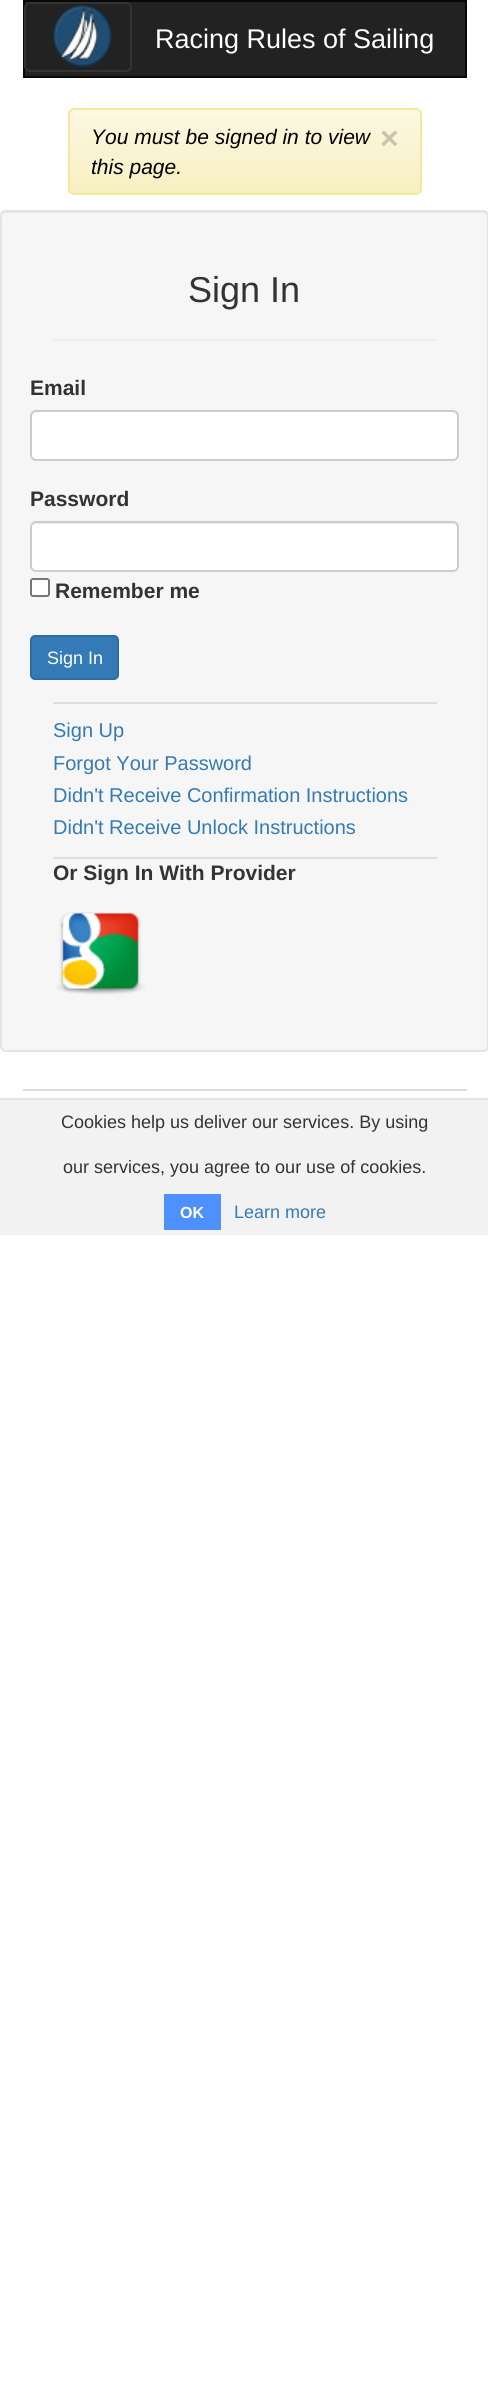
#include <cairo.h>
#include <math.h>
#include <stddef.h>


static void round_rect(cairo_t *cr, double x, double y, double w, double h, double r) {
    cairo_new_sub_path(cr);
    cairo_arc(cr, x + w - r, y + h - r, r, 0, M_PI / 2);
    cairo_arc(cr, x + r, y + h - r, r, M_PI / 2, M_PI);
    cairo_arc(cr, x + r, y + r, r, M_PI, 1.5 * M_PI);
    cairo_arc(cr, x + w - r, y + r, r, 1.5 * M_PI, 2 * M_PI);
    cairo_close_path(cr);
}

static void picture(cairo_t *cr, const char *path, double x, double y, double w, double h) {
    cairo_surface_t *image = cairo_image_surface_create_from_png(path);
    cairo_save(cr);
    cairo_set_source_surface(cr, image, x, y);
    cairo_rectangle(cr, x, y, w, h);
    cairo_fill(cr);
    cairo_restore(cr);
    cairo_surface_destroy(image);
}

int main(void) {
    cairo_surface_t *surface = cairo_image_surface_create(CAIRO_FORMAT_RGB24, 488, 2381);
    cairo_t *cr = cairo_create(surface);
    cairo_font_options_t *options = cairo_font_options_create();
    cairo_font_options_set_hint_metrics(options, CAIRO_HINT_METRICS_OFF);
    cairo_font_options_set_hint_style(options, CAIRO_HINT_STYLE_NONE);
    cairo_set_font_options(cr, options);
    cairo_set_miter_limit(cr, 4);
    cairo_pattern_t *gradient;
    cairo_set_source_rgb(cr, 1, 1, 1);
    cairo_paint(cr);
    cairo_set_source_rgb(cr, 0.133, 0.133, 0.133);
    cairo_rectangle(cr, 24, 1, 442, 76);
    cairo_fill_preserve(cr);
    cairo_set_source_rgb(cr, 0.035, 0.035, 0.035);
    cairo_stroke(cr);
    round_rect(cr, 25, 3, 106, 68, 5);
    cairo_set_source_rgb(cr, 0.2, 0.2, 0.2);
    cairo_stroke(cr);
    picture(cr, "img1.png", 52, 4, 61, 64);
    cairo_select_font_face(cr, "Liberation Sans", CAIRO_FONT_SLANT_NORMAL, CAIRO_FONT_WEIGHT_NORMAL);
    cairo_set_font_size(cr, 27);
    cairo_set_source_rgb(cr, 1, 1, 1);
    cairo_move_to(cr, 155, 48);
    cairo_show_text(cr, "Racing Rules of Sailing");
    cairo_save(cr);
    round_rect(cr, 68, 108, 354, 87, 6);
    cairo_clip(cr);
    gradient = cairo_pattern_create_linear(245, 109, 245, 194);
    cairo_pattern_add_color_stop_rgba(gradient, 0, 0.988, 0.973, 0.89, 1);
    cairo_pattern_add_color_stop_rgba(gradient, 1, 0.973, 0.937, 0.753, 1);
    cairo_set_source(cr, gradient);
    cairo_pattern_destroy(gradient);
    cairo_rectangle(cr, 68, 110, 354, 84);
    cairo_fill(cr);
    cairo_restore(cr);
    round_rect(cr, 69, 109, 352, 85, 5);
    cairo_set_source_rgb(cr, 0.961, 0.906, 0.62);
    cairo_stroke(cr);
    cairo_select_font_face(cr, "Liberation Sans", CAIRO_FONT_SLANT_ITALIC, CAIRO_FONT_WEIGHT_NORMAL);
    cairo_set_font_size(cr, 21);
    cairo_set_source_rgb(cr, 0, 0, 0);
    cairo_move_to(cr, 91, 144);
    cairo_show_text(cr, "You must be signed in to view");
    cairo_select_font_face(cr, "Liberation Sans", CAIRO_FONT_SLANT_NORMAL, CAIRO_FONT_WEIGHT_BOLD);
    cairo_set_font_size(cr, 32);
    cairo_set_source_rgb(cr, 0.788, 0.769, 0.675);
    cairo_move_to(cr, 380, 149);
    cairo_show_text(cr, "×");
    cairo_select_font_face(cr, "Liberation Sans", CAIRO_FONT_SLANT_ITALIC, CAIRO_FONT_WEIGHT_NORMAL);
    cairo_set_font_size(cr, 21);
    cairo_set_source_rgb(cr, 0, 0, 0);
    cairo_move_to(cr, 91, 174);
    cairo_show_text(cr, "this page.");
    cairo_set_source_rgb(cr, 0.961, 0.961, 0.961);
    round_rect(cr, 0, 210, 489, 842, 6);
    cairo_fill(cr);
    cairo_set_source_rgb(cr, 0.914, 0.914, 0.914);
    cairo_new_path(cr);
    cairo_move_to(cr, 6, 213);
    cairo_line_to(cr, 483, 213);
    cairo_curve_to(cr, 485, 213, 488, 215, 488, 218);
    cairo_line_to(cr, 488, 217);
    cairo_curve_to(cr, 488, 214, 486, 212, 483, 212);
    cairo_line_to(cr, 7, 212);
    cairo_curve_to(cr, 4, 212, 2, 214, 2, 217);
    cairo_line_to(cr, 2, 218);
    cairo_curve_to(cr, 2, 215, 4, 213, 6, 213);
    cairo_close_path(cr);
    cairo_fill(cr);
    round_rect(cr, 1, 211, 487, 840, 5);
    cairo_set_source_rgb(cr, 0.89, 0.89, 0.89);
    cairo_stroke(cr);
    cairo_select_font_face(cr, "Liberation Sans", CAIRO_FONT_SLANT_NORMAL, CAIRO_FONT_WEIGHT_NORMAL);
    cairo_set_font_size(cr, 36);
    cairo_set_source_rgb(cr, 0.2, 0.2, 0.2);
    cairo_move_to(cr, 188, 302);
    cairo_show_text(cr, "Sign In");
    cairo_set_source_rgb(cr, 0.933, 0.933, 0.933);
    cairo_rectangle(cr, 53, 339, 384, 2);
    cairo_fill(cr);
    cairo_select_font_face(cr, "Liberation Sans", CAIRO_FONT_SLANT_NORMAL, CAIRO_FONT_WEIGHT_BOLD);
    cairo_set_font_size(cr, 21);
    cairo_set_source_rgb(cr, 0.2, 0.2, 0.2);
    cairo_move_to(cr, 30, 395);
    cairo_show_text(cr, "Email");
    cairo_set_source_rgb(cr, 1, 1, 1);
    round_rect(cr, 30, 410, 429, 51, 6);
    cairo_fill(cr);
    cairo_set_source_rgb(cr, 0.925, 0.925, 0.925);
    cairo_new_path(cr);
    cairo_move_to(cr, 36, 412);
    cairo_line_to(cr, 453, 412);
    cairo_curve_to(cr, 455, 412, 458, 415, 458, 417);
    cairo_curve_to(cr, 458, 414, 456, 411, 453, 411);
    cairo_line_to(cr, 37, 411);
    cairo_curve_to(cr, 34, 411, 32, 414, 32, 417);
    cairo_curve_to(cr, 32, 415, 34, 412, 36, 412);
    cairo_close_path(cr);
    cairo_fill(cr);
    round_rect(cr, 31, 411, 427, 49, 5);
    cairo_set_source_rgb(cr, 0.8, 0.8, 0.8);
    cairo_stroke(cr);
    cairo_set_source_rgb(cr, 0.2, 0.2, 0.2);
    cairo_move_to(cr, 30, 506);
    cairo_show_text(cr, "Password");
    cairo_set_source_rgb(cr, 1, 1, 1);
    round_rect(cr, 30, 521, 429, 51, 6);
    cairo_fill(cr);
    cairo_set_source_rgb(cr, 0.925, 0.925, 0.925);
    cairo_new_path(cr);
    cairo_move_to(cr, 36, 524);
    cairo_line_to(cr, 453, 524);
    cairo_curve_to(cr, 455, 524, 458, 526, 458, 528);
    cairo_curve_to(cr, 458, 525, 456, 522, 453, 522);
    cairo_line_to(cr, 37, 522);
    cairo_curve_to(cr, 34, 522, 32, 525, 32, 528);
    cairo_curve_to(cr, 32, 526, 34, 524, 36, 524);
    cairo_close_path(cr);
    cairo_fill(cr);
    round_rect(cr, 31, 522, 427, 49, 5);
    cairo_set_source_rgb(cr, 0.8, 0.8, 0.8);
    cairo_stroke(cr);
    cairo_set_source_rgb(cr, 1, 1, 1);
    round_rect(cr, 31, 579, 18, 17, 2);
    cairo_fill_preserve(cr);
    cairo_set_source_rgb(cr, 0.463, 0.463, 0.463);
    cairo_stroke(cr);
    cairo_set_source_rgb(cr, 0.2, 0.2, 0.2);
    cairo_move_to(cr, 55, 598);
    cairo_show_text(cr, "Remember me");
    cairo_set_source_rgb(cr, 0.2, 0.478, 0.718);
    round_rect(cr, 31, 636, 87, 43, 4);
    cairo_fill_preserve(cr);
    cairo_set_source_rgb(cr, 0.18, 0.427, 0.643);
    cairo_stroke(cr);
    cairo_select_font_face(cr, "Liberation Sans", CAIRO_FONT_SLANT_NORMAL, CAIRO_FONT_WEIGHT_NORMAL);
    cairo_set_font_size(cr, 18);
    cairo_set_source_rgb(cr, 1, 1, 1);
    cairo_move_to(cr, 47, 664);
    cairo_show_text(cr, "Sign In");
    cairo_set_source_rgb(cr, 0.867, 0.867, 0.867);
    cairo_rectangle(cr, 53, 702, 384, 2);
    cairo_fill(cr);
    cairo_set_font_size(cr, 20);
    cairo_set_source_rgb(cr, 0.2, 0.478, 0.718);
    cairo_move_to(cr, 53, 737);
    cairo_show_text(cr, "Sign Up");
    cairo_move_to(cr, 53, 770);
    cairo_show_text(cr, "Forgot Your Password");
    cairo_move_to(cr, 53, 802);
    cairo_show_text(cr, "Didn't Receive Confirmation Instructions");
    cairo_move_to(cr, 53, 834);
    cairo_show_text(cr, "Didn't Receive Unlock Instructions");
    cairo_set_source_rgb(cr, 0.867, 0.867, 0.867);
    cairo_rectangle(cr, 53, 857, 384, 2);
    cairo_fill(cr);
    cairo_select_font_face(cr, "Liberation Sans", CAIRO_FONT_SLANT_NORMAL, CAIRO_FONT_WEIGHT_BOLD);
    cairo_set_font_size(cr, 21);
    cairo_set_source_rgb(cr, 0.2, 0.2, 0.2);
    cairo_move_to(cr, 53, 880);
    cairo_show_text(cr, "Or Sign In With Provider");
    picture(cr, "img2.png", 56, 912, 89, 83);
    cairo_set_source_rgb(cr, 0.867, 0.867, 0.867);
    cairo_rectangle(cr, 23, 1089, 444, 2);
    cairo_fill(cr);
    cairo_set_source_rgb(cr, 0.949, 0.949, 0.949);
    cairo_rectangle(cr, 0, 1100, 488, 135);
    cairo_fill(cr);
    cairo_set_source_rgb(cr, 0.894, 0.894, 0.894);
    cairo_rectangle(cr, 0, 1098, 488, 2);
    cairo_fill(cr);
    cairo_select_font_face(cr, "Liberation Sans", CAIRO_FONT_SLANT_NORMAL, CAIRO_FONT_WEIGHT_NORMAL);
    cairo_set_font_size(cr, 18);
    cairo_set_source_rgb(cr, 0.2, 0.2, 0.2);
    cairo_move_to(cr, 61, 1128);
    cairo_show_text(cr, "Cookies help us deliver our services. By using");
    cairo_move_to(cr, 63, 1173);
    cairo_show_text(cr, "our services, you agree to our use of cookies.");
    cairo_set_source_rgb(cr, 0.302, 0.565, 0.996);
    cairo_rectangle(cr, 164, 1194, 57, 36);
    cairo_fill(cr);
    cairo_select_font_face(cr, "Liberation Sans", CAIRO_FONT_SLANT_NORMAL, CAIRO_FONT_WEIGHT_BOLD);
    cairo_set_font_size(cr, 16);
    cairo_set_source_rgb(cr, 1, 1, 1);
    cairo_move_to(cr, 180, 1218);
    cairo_show_text(cr, "OK");
    cairo_select_font_face(cr, "Liberation Sans", CAIRO_FONT_SLANT_NORMAL, CAIRO_FONT_WEIGHT_NORMAL);
    cairo_set_font_size(cr, 18);
    cairo_set_source_rgb(cr, 0.2, 0.478, 0.718);
    cairo_move_to(cr, 234, 1218);
    cairo_show_text(cr, "Learn more");
    cairo_surface_write_to_png(surface, "page.png");
    cairo_font_options_destroy(options);
    cairo_destroy(cr);
    cairo_surface_destroy(surface);
    return 0;
}
